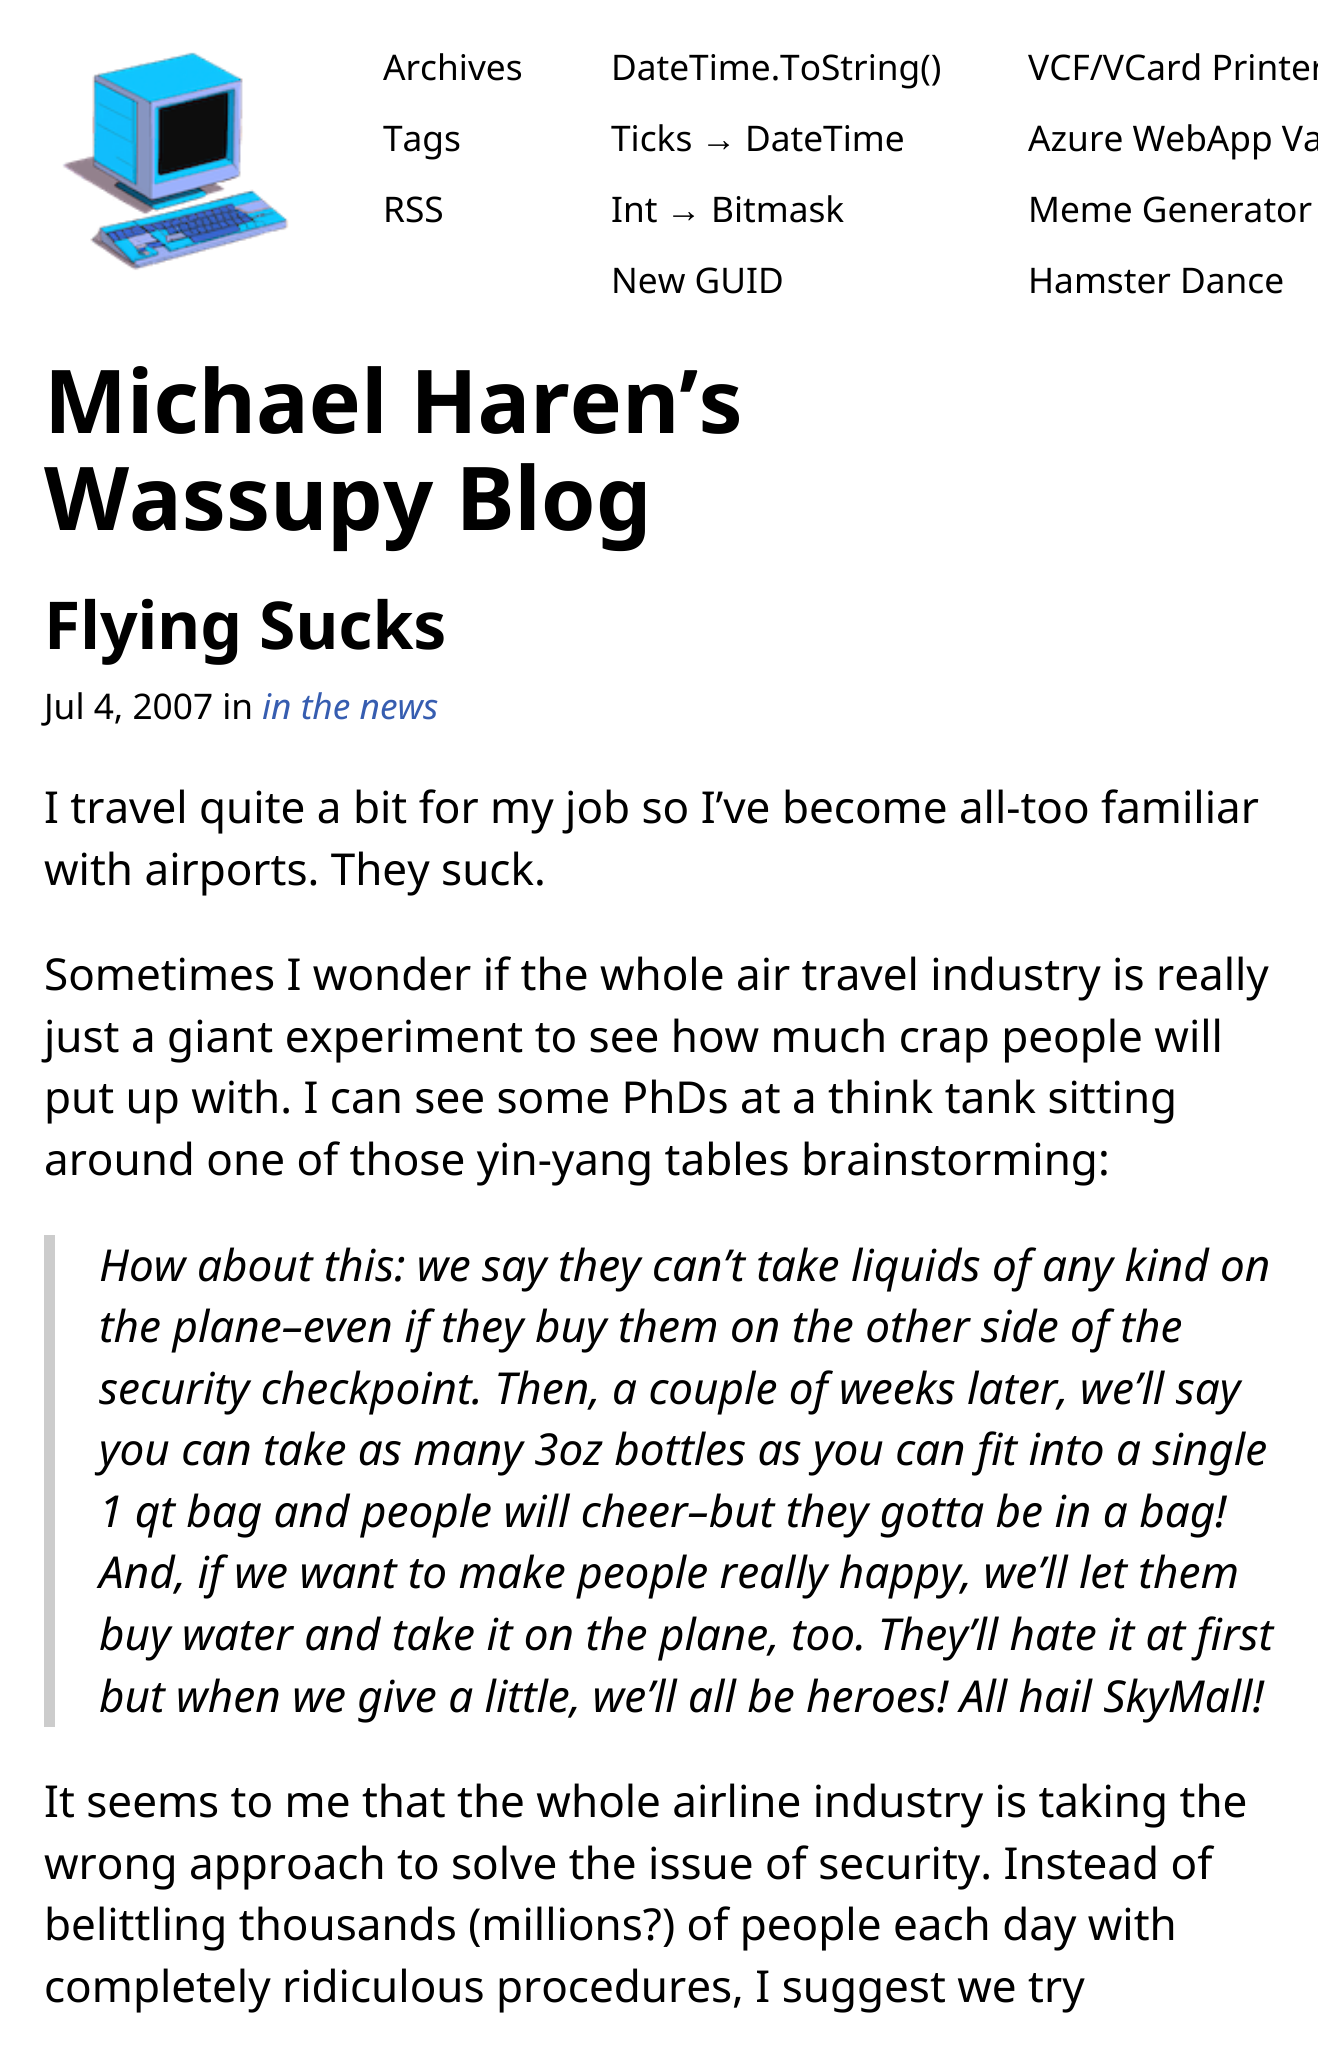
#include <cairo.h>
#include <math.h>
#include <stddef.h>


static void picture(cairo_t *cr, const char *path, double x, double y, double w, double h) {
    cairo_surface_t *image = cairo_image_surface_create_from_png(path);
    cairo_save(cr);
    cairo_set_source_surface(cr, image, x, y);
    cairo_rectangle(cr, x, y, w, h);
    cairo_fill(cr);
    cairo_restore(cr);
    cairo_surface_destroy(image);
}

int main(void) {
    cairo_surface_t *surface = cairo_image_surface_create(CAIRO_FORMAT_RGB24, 1318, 2050);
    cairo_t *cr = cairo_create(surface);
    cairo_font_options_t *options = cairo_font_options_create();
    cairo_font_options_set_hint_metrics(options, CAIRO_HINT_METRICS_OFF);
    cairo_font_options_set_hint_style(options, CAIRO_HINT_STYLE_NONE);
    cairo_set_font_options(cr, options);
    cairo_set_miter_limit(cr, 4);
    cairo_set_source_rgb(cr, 1, 1, 1);
    cairo_paint(cr);
    picture(cr, "img1.png", 62, 52, 227, 219);
    cairo_select_font_face(cr, "Noto Sans", CAIRO_FONT_SLANT_NORMAL, CAIRO_FONT_WEIGHT_NORMAL);
    cairo_set_font_size(cr, 35.25);
    cairo_set_source_rgb(cr, 0, 0, 0);
    cairo_move_to(cr, 383, 80);
    cairo_show_text(cr, "Archives");
    cairo_move_to(cr, 383, 151);
    cairo_show_text(cr, "Tags");
    cairo_move_to(cr, 383, 222);
    cairo_show_text(cr, "RSS");
    cairo_move_to(cr, 611, 80);
    cairo_show_text(cr, "DateTime.ToString()");
    cairo_move_to(cr, 611, 151);
    cairo_show_text(cr, "Ticks");
    cairo_select_font_face(cr, "Liberation Sans", CAIRO_FONT_SLANT_NORMAL, CAIRO_FONT_WEIGHT_NORMAL);
    cairo_move_to(cr, 701, 151);
    cairo_show_text(cr, "→");
    cairo_select_font_face(cr, "Noto Sans", CAIRO_FONT_SLANT_NORMAL, CAIRO_FONT_WEIGHT_NORMAL);
    cairo_move_to(cr, 745, 151);
    cairo_show_text(cr, "DateTime");
    cairo_move_to(cr, 611, 222);
    cairo_show_text(cr, "Int");
    cairo_select_font_face(cr, "Liberation Sans", CAIRO_FONT_SLANT_NORMAL, CAIRO_FONT_WEIGHT_NORMAL);
    cairo_move_to(cr, 666, 222);
    cairo_show_text(cr, "→");
    cairo_select_font_face(cr, "Noto Sans", CAIRO_FONT_SLANT_NORMAL, CAIRO_FONT_WEIGHT_NORMAL);
    cairo_move_to(cr, 711, 222);
    cairo_show_text(cr, "Bitmask");
    cairo_move_to(cr, 611, 293);
    cairo_show_text(cr, "New GUID");
    cairo_move_to(cr, 1028, 80);
    cairo_show_text(cr, "VCF/VCard Printer");
    cairo_move_to(cr, 1028, 151);
    cairo_show_text(cr, "Azure WebApp Va");
    cairo_move_to(cr, 1028, 222);
    cairo_show_text(cr, "Meme Generator");
    cairo_move_to(cr, 1028, 293);
    cairo_show_text(cr, "Hamster Dance");
    cairo_select_font_face(cr, "Noto Sans", CAIRO_FONT_SLANT_NORMAL, CAIRO_FONT_WEIGHT_BOLD);
    cairo_set_font_size(cr, 88);
    cairo_move_to(cr, 44, 433);
    cairo_show_text(cr, "Michael Haren’s");
    cairo_move_to(cr, 44, 530);
    cairo_show_text(cr, "Wassupy Blog");
    cairo_set_font_size(cr, 66);
    cairo_move_to(cr, 44, 649);
    cairo_show_text(cr, "Flying Sucks");
    cairo_select_font_face(cr, "Noto Sans", CAIRO_FONT_SLANT_NORMAL, CAIRO_FONT_WEIGHT_NORMAL);
    cairo_set_font_size(cr, 35.25);
    cairo_move_to(cr, 44, 719);
    cairo_show_text(cr, "Jul 4, 2007 in");
    cairo_select_font_face(cr, "Noto Sans", CAIRO_FONT_SLANT_ITALIC, CAIRO_FONT_WEIGHT_NORMAL);
    cairo_set_source_rgb(cr, 0.212, 0.365, 0.69);
    cairo_move_to(cr, 262, 719);
    cairo_show_text(cr, "in the news");
    cairo_select_font_face(cr, "Noto Sans", CAIRO_FONT_SLANT_NORMAL, CAIRO_FONT_WEIGHT_NORMAL);
    cairo_set_font_size(cr, 44);
    cairo_set_source_rgb(cr, 0, 0, 0);
    cairo_move_to(cr, 44, 823);
    cairo_show_text(cr, "I travel quite a bit for my job so I’ve become all-too familiar");
    cairo_move_to(cr, 44, 885);
    cairo_show_text(cr, "with airports. They suck.");
    cairo_move_to(cr, 44, 990);
    cairo_show_text(cr, "Sometimes I wonder if the whole air travel industry is really");
    cairo_move_to(cr, 44, 1052);
    cairo_show_text(cr, "just a giant experiment to see how much crap people will");
    cairo_move_to(cr, 44, 1113);
    cairo_show_text(cr, "put up with. I can see some PhDs at a think tank sitting");
    cairo_move_to(cr, 44, 1175);
    cairo_show_text(cr, "around one of those yin-yang tables brainstorming:");
    cairo_set_source_rgb(cr, 0.8, 0.8, 0.8);
    cairo_rectangle(cr, 44, 1235, 11, 492);
    cairo_fill(cr);
    cairo_select_font_face(cr, "Noto Sans", CAIRO_FONT_SLANT_ITALIC, CAIRO_FONT_WEIGHT_NORMAL);
    cairo_set_source_rgb(cr, 0, 0, 0);
    cairo_move_to(cr, 99, 1281);
    cairo_show_text(cr, "How about this: we say they can’t take liquids of any kind on");
    cairo_move_to(cr, 99, 1342);
    cairo_show_text(cr, "the plane–even if they buy them on the other side of the");
    cairo_move_to(cr, 99, 1404);
    cairo_show_text(cr, "security checkpoint. Then, a couple of weeks later, we’ll say");
    cairo_move_to(cr, 99, 1465);
    cairo_show_text(cr, "you can take as many 3oz bottles as you can fit into a single");
    cairo_move_to(cr, 99, 1527);
    cairo_show_text(cr, "1 qt bag and people will cheer–but they gotta be in a bag!");
    cairo_move_to(cr, 99, 1588);
    cairo_show_text(cr, "And, if we want to make people really happy, we’ll let them");
    cairo_move_to(cr, 99, 1650);
    cairo_show_text(cr, "buy water and take it on the plane, too. They’ll hate it at first");
    cairo_move_to(cr, 99, 1712);
    cairo_show_text(cr, "but when we give a little, we’ll all be heroes! All hail SkyMall!");
    cairo_select_font_face(cr, "Noto Sans", CAIRO_FONT_SLANT_NORMAL, CAIRO_FONT_WEIGHT_NORMAL);
    cairo_move_to(cr, 44, 1817);
    cairo_show_text(cr, "It seems to me that the whole airline industry is taking the");
    cairo_move_to(cr, 44, 1879);
    cairo_show_text(cr, "wrong approach to solve the issue of security. Instead of");
    cairo_move_to(cr, 44, 1940);
    cairo_show_text(cr, "belittling thousands (millions?) of people each day with");
    cairo_move_to(cr, 44, 2002);
    cairo_show_text(cr, "completely ridiculous procedures, I suggest we try");
    cairo_surface_write_to_png(surface, "page.png");
    cairo_font_options_destroy(options);
    cairo_destroy(cr);
    cairo_surface_destroy(surface);
    return 0;
}
